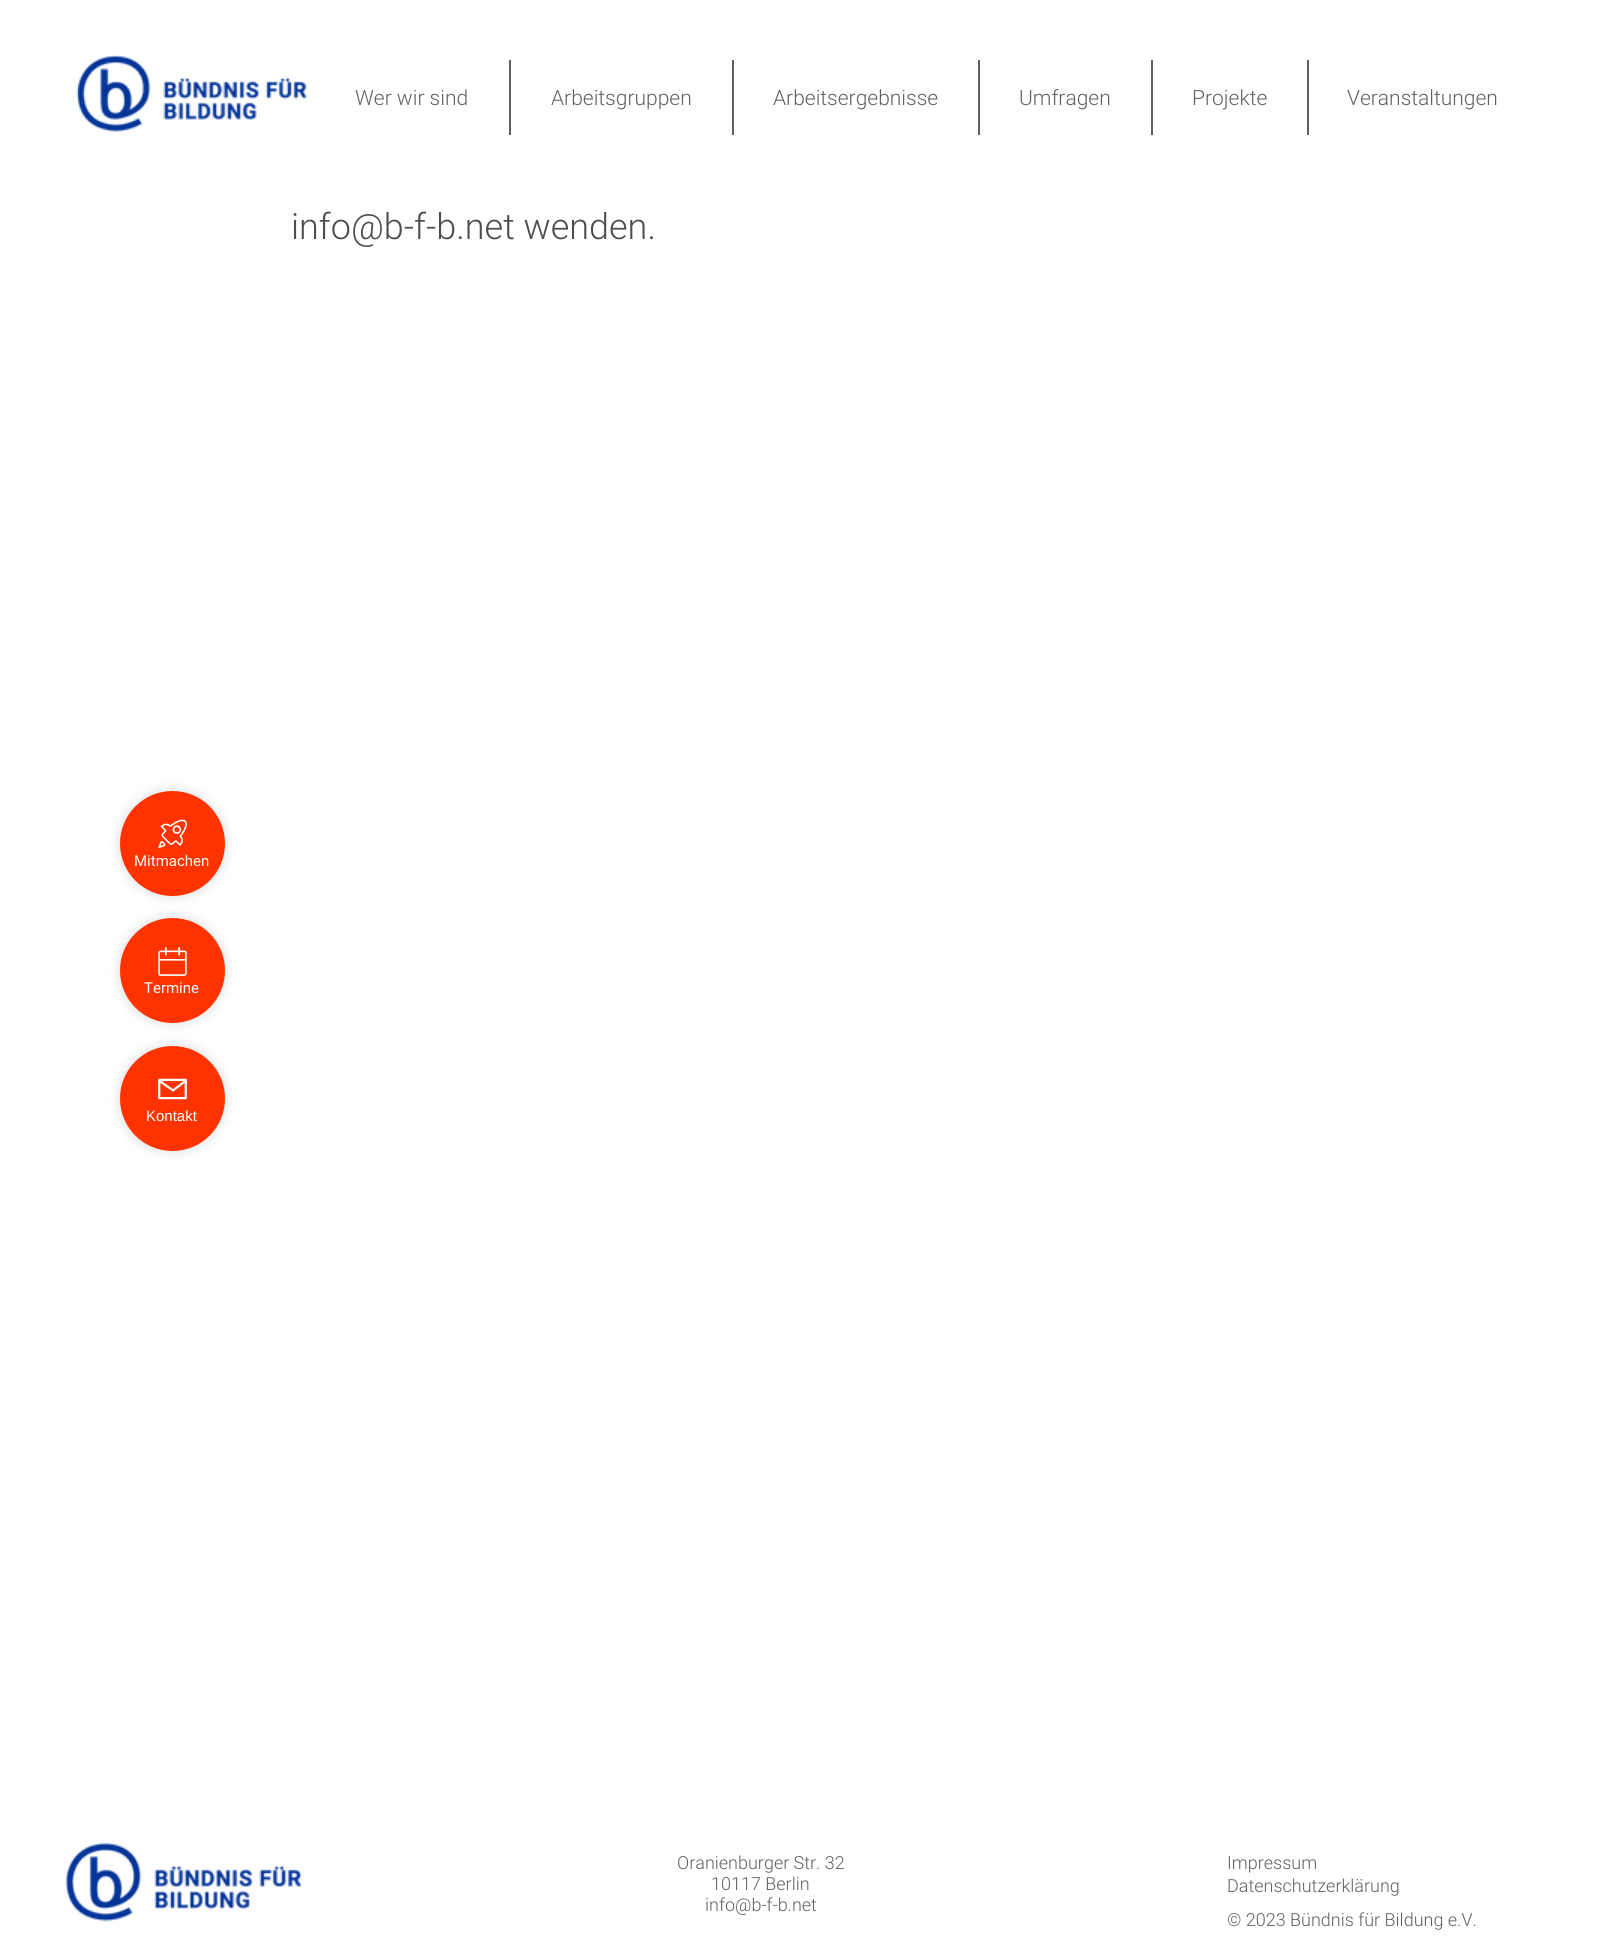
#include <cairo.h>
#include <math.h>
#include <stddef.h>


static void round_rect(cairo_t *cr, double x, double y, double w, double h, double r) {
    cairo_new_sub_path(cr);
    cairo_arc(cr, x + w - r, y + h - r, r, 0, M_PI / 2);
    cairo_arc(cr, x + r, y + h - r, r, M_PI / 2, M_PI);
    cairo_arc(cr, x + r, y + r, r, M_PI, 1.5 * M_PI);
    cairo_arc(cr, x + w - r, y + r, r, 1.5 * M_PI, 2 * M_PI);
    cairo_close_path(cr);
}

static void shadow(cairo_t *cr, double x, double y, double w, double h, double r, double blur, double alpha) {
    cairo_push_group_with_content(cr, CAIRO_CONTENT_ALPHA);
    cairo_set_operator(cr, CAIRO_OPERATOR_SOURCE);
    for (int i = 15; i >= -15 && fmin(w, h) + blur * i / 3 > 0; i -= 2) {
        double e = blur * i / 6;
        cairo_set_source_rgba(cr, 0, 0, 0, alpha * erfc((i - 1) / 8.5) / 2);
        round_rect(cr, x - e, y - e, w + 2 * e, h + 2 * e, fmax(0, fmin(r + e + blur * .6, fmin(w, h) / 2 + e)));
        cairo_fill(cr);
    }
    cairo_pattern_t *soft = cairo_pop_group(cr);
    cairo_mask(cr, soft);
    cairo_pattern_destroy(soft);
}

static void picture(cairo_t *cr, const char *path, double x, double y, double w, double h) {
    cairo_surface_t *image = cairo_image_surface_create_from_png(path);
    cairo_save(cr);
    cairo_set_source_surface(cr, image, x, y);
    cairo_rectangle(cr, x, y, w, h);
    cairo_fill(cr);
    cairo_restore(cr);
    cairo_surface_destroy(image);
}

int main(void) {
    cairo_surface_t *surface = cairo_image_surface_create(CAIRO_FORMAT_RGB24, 1601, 1939);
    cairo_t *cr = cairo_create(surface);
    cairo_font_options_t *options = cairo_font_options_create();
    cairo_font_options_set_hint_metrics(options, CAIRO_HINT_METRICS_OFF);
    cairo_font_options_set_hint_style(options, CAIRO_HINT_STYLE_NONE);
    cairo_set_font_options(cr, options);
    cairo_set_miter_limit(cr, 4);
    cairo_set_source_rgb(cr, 1, 1, 1);
    cairo_paint(cr);
    picture(cr, "img1.png", 76, 55, 231, 77);
    cairo_select_font_face(cr, "Roboto Light", CAIRO_FONT_SLANT_NORMAL, CAIRO_FONT_WEIGHT_NORMAL);
    cairo_set_font_size(cr, 21);
    cairo_set_source_rgb(cr, 0.376, 0.376, 0.376);
    cairo_move_to(cr, 355, 105);
    cairo_show_text(cr, "Wer wir sind");
    cairo_rectangle(cr, 509, 60, 2, 75);
    cairo_fill(cr);
    cairo_move_to(cr, 551, 105);
    cairo_show_text(cr, "Arbeitsgruppen");
    cairo_rectangle(cr, 732, 60, 2, 75);
    cairo_fill(cr);
    cairo_move_to(cr, 773, 105);
    cairo_show_text(cr, "Arbeitsergebnisse");
    cairo_rectangle(cr, 978, 60, 2, 75);
    cairo_fill(cr);
    cairo_move_to(cr, 1019, 105);
    cairo_show_text(cr, "Umfragen");
    cairo_rectangle(cr, 1151, 60, 2, 75);
    cairo_fill(cr);
    cairo_move_to(cr, 1192, 105);
    cairo_show_text(cr, "Projekte");
    cairo_rectangle(cr, 1307, 60, 2, 75);
    cairo_fill(cr);
    cairo_move_to(cr, 1347, 105);
    cairo_show_text(cr, "Veranstaltungen");
    cairo_set_font_size(cr, 36);
    cairo_set_source_rgb(cr, 0.302, 0.302, 0.302);
    cairo_move_to(cr, 291, 239);
    cairo_show_text(cr, "info@b-f-b.net wenden.");
    cairo_set_source_rgb(cr, 0, 0, 0);
    shadow(cr, 120, 791, 105, 105, 52.5, 6, 0.15);
    cairo_set_source_rgb(cr, 1, 0.2, 0);
    cairo_arc(cr, 172.5, 843.5, 52.5, 0, 2 * M_PI);
    cairo_fill(cr);
    picture(cr, "img2.png", 158, 819, 29, 30);
    cairo_select_font_face(cr, "Roboto", CAIRO_FONT_SLANT_NORMAL, CAIRO_FONT_WEIGHT_NORMAL);
    cairo_set_font_size(cr, 15);
    cairo_set_source_rgb(cr, 1, 1, 1);
    cairo_move_to(cr, 134, 866);
    cairo_show_text(cr, "Mitmachen");
    cairo_set_source_rgb(cr, 0, 0, 0);
    shadow(cr, 120, 918, 105, 105, 52.5, 6, 0.15);
    cairo_set_source_rgb(cr, 1, 0.2, 0);
    cairo_arc(cr, 172.5, 970.5, 52.5, 0, 2 * M_PI);
    cairo_fill(cr);
    picture(cr, "img3.png", 158, 947, 29, 29);
    cairo_set_source_rgb(cr, 1, 1, 1);
    cairo_move_to(cr, 144, 993);
    cairo_show_text(cr, "Termine");
    cairo_set_source_rgb(cr, 0, 0, 0);
    shadow(cr, 120, 1046, 105, 105, 52.5, 6, 0.15);
    cairo_set_source_rgb(cr, 1, 0.2, 0);
    cairo_arc(cr, 172.5, 1098.5, 52.5, 0, 2 * M_PI);
    cairo_fill(cr);
    picture(cr, "img4.png", 158, 1078, 29, 22);
    cairo_select_font_face(cr, "Liberation Sans", CAIRO_FONT_SLANT_NORMAL, CAIRO_FONT_WEIGHT_NORMAL);
    cairo_set_source_rgb(cr, 1, 1, 1);
    cairo_move_to(cr, 146, 1121);
    cairo_show_text(cr, "Kontakt");
    picture(cr, "img5.png", 65, 1842, 237, 80);
    cairo_select_font_face(cr, "Roboto Light", CAIRO_FONT_SLANT_NORMAL, CAIRO_FONT_WEIGHT_NORMAL);
    cairo_set_font_size(cr, 18);
    cairo_set_source_rgb(cr, 0.376, 0.376, 0.376);
    cairo_move_to(cr, 677, 1869);
    cairo_show_text(cr, "Oranienburger Str. 32");
    cairo_move_to(cr, 711, 1890);
    cairo_show_text(cr, "10117 Berlin");
    cairo_move_to(cr, 705, 1911);
    cairo_show_text(cr, "info@b-f-b.net");
    cairo_move_to(cr, 1227, 1869);
    cairo_show_text(cr, "Impressum");
    cairo_move_to(cr, 1227, 1892);
    cairo_show_text(cr, "Datenschutzerklärung");
    cairo_move_to(cr, 1227, 1926);
    cairo_show_text(cr, "© 2023 Bündnis für Bildung e.V.");
    cairo_surface_write_to_png(surface, "page.png");
    cairo_font_options_destroy(options);
    cairo_destroy(cr);
    cairo_surface_destroy(surface);
    return 0;
}
